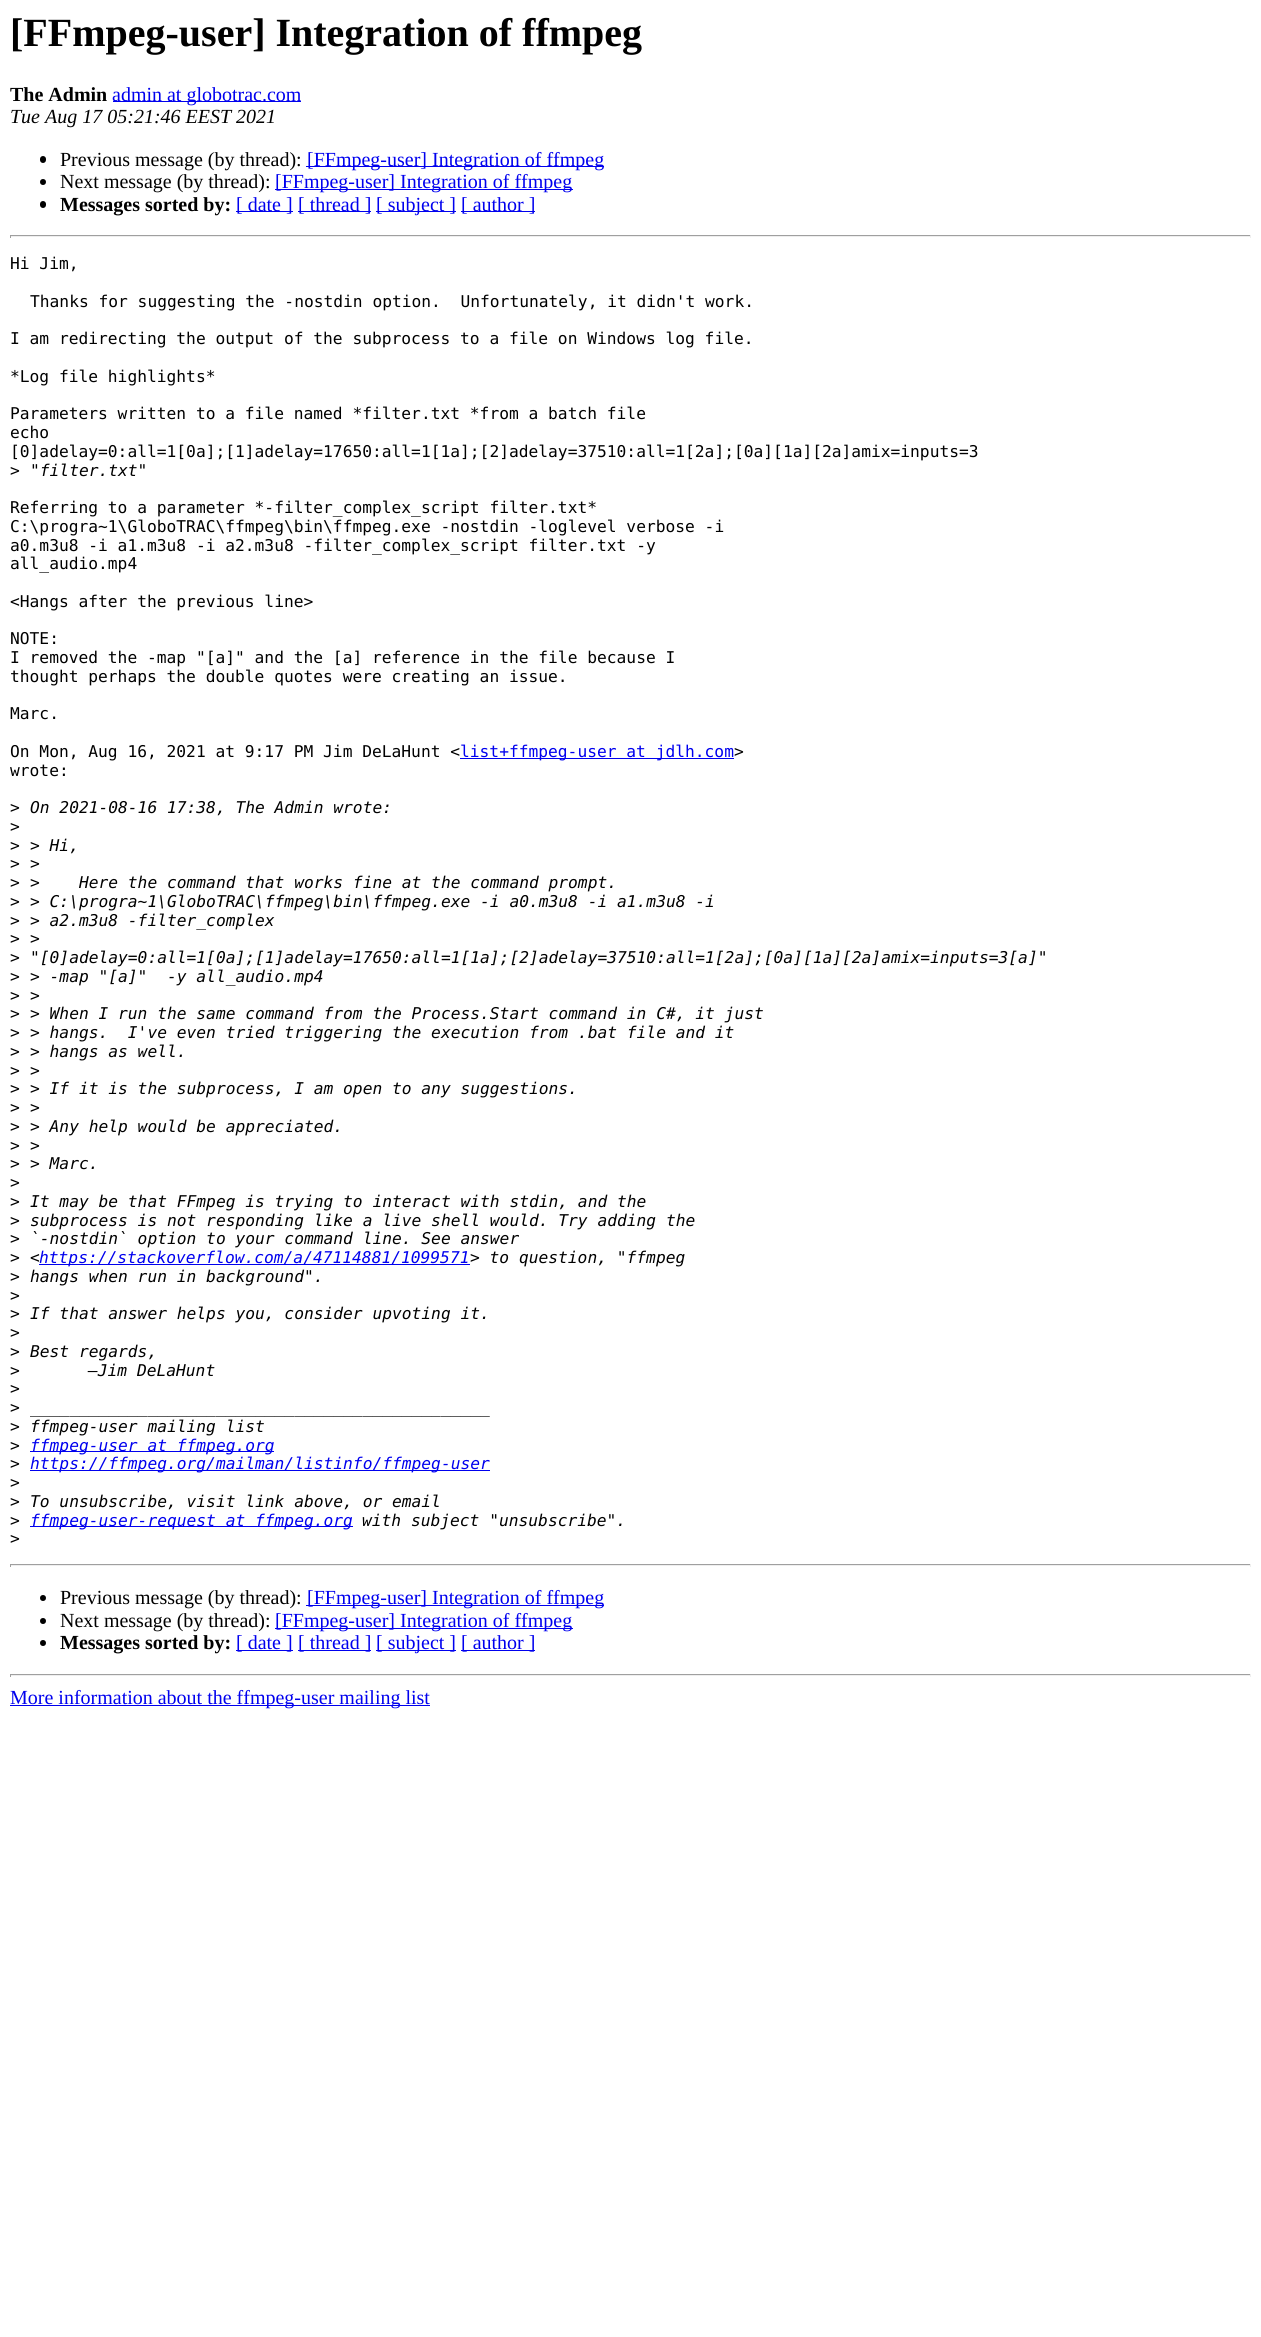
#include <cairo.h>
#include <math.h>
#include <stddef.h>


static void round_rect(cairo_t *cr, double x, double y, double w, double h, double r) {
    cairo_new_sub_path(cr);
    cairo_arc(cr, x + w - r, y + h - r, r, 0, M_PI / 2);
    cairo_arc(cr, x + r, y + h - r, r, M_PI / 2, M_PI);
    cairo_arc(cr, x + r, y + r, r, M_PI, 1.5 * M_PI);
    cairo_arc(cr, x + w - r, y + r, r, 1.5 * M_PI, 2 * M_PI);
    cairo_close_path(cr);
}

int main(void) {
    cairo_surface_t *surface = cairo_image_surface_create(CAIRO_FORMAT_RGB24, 1261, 2337);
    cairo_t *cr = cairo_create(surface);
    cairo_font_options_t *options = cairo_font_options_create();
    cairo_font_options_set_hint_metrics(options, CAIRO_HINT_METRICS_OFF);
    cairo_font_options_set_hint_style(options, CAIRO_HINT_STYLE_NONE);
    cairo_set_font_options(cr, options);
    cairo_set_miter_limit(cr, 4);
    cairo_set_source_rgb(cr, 1, 1, 1);
    cairo_paint(cr);
    cairo_select_font_face(cr, "Liberation Serif", CAIRO_FONT_SLANT_NORMAL, CAIRO_FONT_WEIGHT_BOLD);
    cairo_set_font_size(cr, 40);
    cairo_set_source_rgb(cr, 0, 0, 0);
    cairo_move_to(cr, 10, 46);
    cairo_show_text(cr, "[FFmpeg-user] Integration of ffmpeg");
    cairo_set_font_size(cr, 20);
    cairo_move_to(cr, 10, 101);
    cairo_show_text(cr, "The Admin");
    cairo_set_source_rgb(cr, 0, 0, 0.933);
    cairo_rectangle(cr, 113, 101, 188, 1);
    cairo_fill(cr);
    cairo_select_font_face(cr, "Liberation Serif", CAIRO_FONT_SLANT_NORMAL, CAIRO_FONT_WEIGHT_NORMAL);
    cairo_move_to(cr, 112, 101);
    cairo_show_text(cr, "admin at globotrac.com");
    cairo_select_font_face(cr, "Liberation Serif", CAIRO_FONT_SLANT_ITALIC, CAIRO_FONT_WEIGHT_NORMAL);
    cairo_set_source_rgb(cr, 0, 0, 0);
    cairo_move_to(cr, 10, 123);
    cairo_show_text(cr, "Tue Aug 17 05:21:46 EEST 2021");
    round_rect(cr, 40, 156, 6, 7, 3);
    cairo_fill(cr);
    cairo_select_font_face(cr, "Liberation Serif", CAIRO_FONT_SLANT_NORMAL, CAIRO_FONT_WEIGHT_NORMAL);
    cairo_move_to(cr, 60, 166);
    cairo_show_text(cr, "Previous message (by thread):");
    cairo_set_source_rgb(cr, 0, 0, 0.933);
    cairo_rectangle(cr, 306, 166, 298, 1);
    cairo_fill(cr);
    cairo_move_to(cr, 307, 166);
    cairo_show_text(cr, "[FFmpeg-user] Integration of ffmpeg");
    cairo_set_source_rgb(cr, 0, 0, 0);
    cairo_new_path(cr);
    cairo_arc(cr, 43, 182, 3, 0, 2 * M_PI);
    cairo_fill(cr);
    cairo_move_to(cr, 60, 188);
    cairo_show_text(cr, "Next message (by thread):");
    cairo_set_source_rgb(cr, 0, 0, 0.933);
    cairo_rectangle(cr, 275, 189, 298, 1);
    cairo_fill(cr);
    cairo_move_to(cr, 275, 188);
    cairo_show_text(cr, "[FFmpeg-user] Integration of ffmpeg");
    cairo_set_source_rgb(cr, 0, 0, 0);
    round_rect(cr, 40, 201, 6, 7, 3);
    cairo_fill(cr);
    cairo_select_font_face(cr, "Liberation Serif", CAIRO_FONT_SLANT_NORMAL, CAIRO_FONT_WEIGHT_BOLD);
    cairo_move_to(cr, 60, 211);
    cairo_show_text(cr, "Messages sorted by:");
    cairo_set_source_rgb(cr, 0, 0, 0.933);
    cairo_rectangle(cr, 236, 211, 57, 1);
    cairo_fill(cr);
    cairo_select_font_face(cr, "Liberation Serif", CAIRO_FONT_SLANT_NORMAL, CAIRO_FONT_WEIGHT_NORMAL);
    cairo_move_to(cr, 236, 211);
    cairo_show_text(cr, "[ date ]");
    cairo_rectangle(cr, 298, 211, 73, 1);
    cairo_fill(cr);
    cairo_move_to(cr, 298, 211);
    cairo_show_text(cr, "[ thread ]");
    cairo_rectangle(cr, 376, 211, 80, 1);
    cairo_fill(cr);
    cairo_move_to(cr, 376, 211);
    cairo_show_text(cr, "[ subject ]");
    cairo_rectangle(cr, 461, 211, 74, 1);
    cairo_fill(cr);
    cairo_move_to(cr, 461, 211);
    cairo_show_text(cr, "[ author ]");
    cairo_set_source_rgb(cr, 0.624, 0.624, 0.624);
    cairo_rectangle(cr, 10, 235, 1241, 1);
    cairo_fill(cr);
    cairo_set_source_rgb(cr, 0.933, 0.933, 0.933);
    cairo_rectangle(cr, 1250, 235, 1, 3);
    cairo_fill(cr);
    cairo_rectangle(cr, 10, 236, 1241, 1);
    cairo_fill(cr);
    cairo_set_source_rgb(cr, 0.624, 0.624, 0.624);
    cairo_rectangle(cr, 10, 235, 1, 3);
    cairo_fill(cr);
    cairo_select_font_face(cr, "DejaVu Sans Mono", CAIRO_FONT_SLANT_NORMAL, CAIRO_FONT_WEIGHT_NORMAL);
    cairo_set_font_size(cr, 16.25);
    cairo_set_source_rgb(cr, 0, 0, 0);
    cairo_move_to(cr, 10, 269);
    cairo_show_text(cr, "Hi Jim,");
    cairo_move_to(cr, 30, 307);
    cairo_show_text(cr, "Thanks for suggesting the -nostdin option.  Unfortunately, it didn't work.");
    cairo_move_to(cr, 10, 344);
    cairo_show_text(cr, "I am redirecting the output of the subprocess to a file on Windows log file.");
    cairo_move_to(cr, 10, 382);
    cairo_show_text(cr, "*Log file highlights*");
    cairo_move_to(cr, 10, 419);
    cairo_show_text(cr, "Parameters written to a file named *filter.txt *from a batch file");
    cairo_move_to(cr, 10, 438);
    cairo_show_text(cr, "echo");
    cairo_move_to(cr, 10, 457);
    cairo_show_text(cr, "[0]adelay=0:all=1[0a];[1]adelay=17650:all=1[1a];[2]adelay=37510:all=1[2a];[0a][1a][2a]amix=inputs=3");
    cairo_move_to(cr, 10, 476);
    cairo_show_text(cr, ">");
    cairo_select_font_face(cr, "DejaVu Sans Mono", CAIRO_FONT_SLANT_ITALIC, CAIRO_FONT_WEIGHT_NORMAL);
    cairo_move_to(cr, 30, 476);
    cairo_show_text(cr, "\"filter.txt\"");
    cairo_select_font_face(cr, "DejaVu Sans Mono", CAIRO_FONT_SLANT_NORMAL, CAIRO_FONT_WEIGHT_NORMAL);
    cairo_move_to(cr, 10, 513);
    cairo_show_text(cr, "Referring to a parameter *-filter_complex_script filter.txt*");
    cairo_move_to(cr, 10, 532);
    cairo_show_text(cr, "C:\\progra~1\\GloboTRAC\\ffmpeg\\bin\\ffmpeg.exe -nostdin -loglevel verbose -i");
    cairo_move_to(cr, 10, 551);
    cairo_show_text(cr, "a0.m3u8 -i a1.m3u8 -i a2.m3u8 -filter_complex_script filter.txt -y");
    cairo_move_to(cr, 10, 569);
    cairo_show_text(cr, "all_audio.mp4");
    cairo_move_to(cr, 10, 607);
    cairo_show_text(cr, "<Hangs after the previous line>");
    cairo_move_to(cr, 10, 644);
    cairo_show_text(cr, "NOTE:");
    cairo_move_to(cr, 10, 663);
    cairo_show_text(cr, "I removed the -map \"[a]\" and the [a] reference in the file because I");
    cairo_move_to(cr, 10, 682);
    cairo_show_text(cr, "thought perhaps the double quotes were creating an issue.");
    cairo_move_to(cr, 10, 719);
    cairo_show_text(cr, "Marc.");
    cairo_move_to(cr, 10, 757);
    cairo_show_text(cr, "On Mon, Aug 16, 2021 at 9:17 PM Jim DeLaHunt <");
    cairo_set_source_rgb(cr, 0, 0, 0.933);
    cairo_rectangle(cr, 460, 758, 274, 1);
    cairo_fill(cr);
    cairo_move_to(cr, 460, 757);
    cairo_show_text(cr, "list+ffmpeg-user at jdlh.com");
    cairo_set_source_rgb(cr, 0, 0, 0);
    cairo_move_to(cr, 734, 757);
    cairo_show_text(cr, ">");
    cairo_move_to(cr, 10, 776);
    cairo_show_text(cr, "wrote:");
    cairo_move_to(cr, 10, 813);
    cairo_show_text(cr, ">");
    cairo_select_font_face(cr, "DejaVu Sans Mono", CAIRO_FONT_SLANT_ITALIC, CAIRO_FONT_WEIGHT_NORMAL);
    cairo_move_to(cr, 30, 813);
    cairo_show_text(cr, "On 2021-08-16 17:38, The Admin wrote:");
    cairo_select_font_face(cr, "DejaVu Sans Mono", CAIRO_FONT_SLANT_NORMAL, CAIRO_FONT_WEIGHT_NORMAL);
    cairo_move_to(cr, 10, 832);
    cairo_show_text(cr, ">");
    cairo_move_to(cr, 10, 851);
    cairo_show_text(cr, ">");
    cairo_select_font_face(cr, "DejaVu Sans Mono", CAIRO_FONT_SLANT_ITALIC, CAIRO_FONT_WEIGHT_NORMAL);
    cairo_move_to(cr, 30, 851);
    cairo_show_text(cr, "> Hi,");
    cairo_select_font_face(cr, "DejaVu Sans Mono", CAIRO_FONT_SLANT_NORMAL, CAIRO_FONT_WEIGHT_NORMAL);
    cairo_move_to(cr, 10, 869);
    cairo_show_text(cr, ">");
    cairo_select_font_face(cr, "DejaVu Sans Mono", CAIRO_FONT_SLANT_ITALIC, CAIRO_FONT_WEIGHT_NORMAL);
    cairo_move_to(cr, 30, 869);
    cairo_show_text(cr, ">");
    cairo_select_font_face(cr, "DejaVu Sans Mono", CAIRO_FONT_SLANT_NORMAL, CAIRO_FONT_WEIGHT_NORMAL);
    cairo_move_to(cr, 10, 888);
    cairo_show_text(cr, ">");
    cairo_select_font_face(cr, "DejaVu Sans Mono", CAIRO_FONT_SLANT_ITALIC, CAIRO_FONT_WEIGHT_NORMAL);
    cairo_move_to(cr, 30, 888);
    cairo_show_text(cr, ">    Here the command that works fine at the command prompt.");
    cairo_select_font_face(cr, "DejaVu Sans Mono", CAIRO_FONT_SLANT_NORMAL, CAIRO_FONT_WEIGHT_NORMAL);
    cairo_move_to(cr, 10, 907);
    cairo_show_text(cr, ">");
    cairo_select_font_face(cr, "DejaVu Sans Mono", CAIRO_FONT_SLANT_ITALIC, CAIRO_FONT_WEIGHT_NORMAL);
    cairo_move_to(cr, 30, 907);
    cairo_show_text(cr, "> C:\\progra~1\\GloboTRAC\\ffmpeg\\bin\\ffmpeg.exe -i a0.m3u8 -i a1.m3u8 -i");
    cairo_select_font_face(cr, "DejaVu Sans Mono", CAIRO_FONT_SLANT_NORMAL, CAIRO_FONT_WEIGHT_NORMAL);
    cairo_move_to(cr, 10, 926);
    cairo_show_text(cr, ">");
    cairo_select_font_face(cr, "DejaVu Sans Mono", CAIRO_FONT_SLANT_ITALIC, CAIRO_FONT_WEIGHT_NORMAL);
    cairo_move_to(cr, 30, 926);
    cairo_show_text(cr, "> a2.m3u8 -filter_complex");
    cairo_select_font_face(cr, "DejaVu Sans Mono", CAIRO_FONT_SLANT_NORMAL, CAIRO_FONT_WEIGHT_NORMAL);
    cairo_move_to(cr, 10, 944);
    cairo_show_text(cr, ">");
    cairo_select_font_face(cr, "DejaVu Sans Mono", CAIRO_FONT_SLANT_ITALIC, CAIRO_FONT_WEIGHT_NORMAL);
    cairo_move_to(cr, 30, 944);
    cairo_show_text(cr, ">");
    cairo_select_font_face(cr, "DejaVu Sans Mono", CAIRO_FONT_SLANT_NORMAL, CAIRO_FONT_WEIGHT_NORMAL);
    cairo_move_to(cr, 10, 963);
    cairo_show_text(cr, ">");
    cairo_select_font_face(cr, "DejaVu Sans Mono", CAIRO_FONT_SLANT_ITALIC, CAIRO_FONT_WEIGHT_NORMAL);
    cairo_move_to(cr, 30, 963);
    cairo_show_text(cr, "\"[0]adelay=0:all=1[0a];[1]adelay=17650:all=1[1a];[2]adelay=37510:all=1[2a];[0a][1a][2a]amix=inputs=3[a]\"");
    cairo_select_font_face(cr, "DejaVu Sans Mono", CAIRO_FONT_SLANT_NORMAL, CAIRO_FONT_WEIGHT_NORMAL);
    cairo_move_to(cr, 10, 982);
    cairo_show_text(cr, ">");
    cairo_select_font_face(cr, "DejaVu Sans Mono", CAIRO_FONT_SLANT_ITALIC, CAIRO_FONT_WEIGHT_NORMAL);
    cairo_move_to(cr, 30, 982);
    cairo_show_text(cr, "> -map \"[a]\"  -y all_audio.mp4");
    cairo_select_font_face(cr, "DejaVu Sans Mono", CAIRO_FONT_SLANT_NORMAL, CAIRO_FONT_WEIGHT_NORMAL);
    cairo_move_to(cr, 10, 1001);
    cairo_show_text(cr, ">");
    cairo_select_font_face(cr, "DejaVu Sans Mono", CAIRO_FONT_SLANT_ITALIC, CAIRO_FONT_WEIGHT_NORMAL);
    cairo_move_to(cr, 30, 1001);
    cairo_show_text(cr, ">");
    cairo_select_font_face(cr, "DejaVu Sans Mono", CAIRO_FONT_SLANT_NORMAL, CAIRO_FONT_WEIGHT_NORMAL);
    cairo_move_to(cr, 10, 1019);
    cairo_show_text(cr, ">");
    cairo_select_font_face(cr, "DejaVu Sans Mono", CAIRO_FONT_SLANT_ITALIC, CAIRO_FONT_WEIGHT_NORMAL);
    cairo_move_to(cr, 30, 1019);
    cairo_show_text(cr, "> When I run the same command from the Process.Start command in C#, it just");
    cairo_select_font_face(cr, "DejaVu Sans Mono", CAIRO_FONT_SLANT_NORMAL, CAIRO_FONT_WEIGHT_NORMAL);
    cairo_move_to(cr, 10, 1038);
    cairo_show_text(cr, ">");
    cairo_select_font_face(cr, "DejaVu Sans Mono", CAIRO_FONT_SLANT_ITALIC, CAIRO_FONT_WEIGHT_NORMAL);
    cairo_move_to(cr, 30, 1038);
    cairo_show_text(cr, "> hangs.  I've even tried triggering the execution from .bat file and it");
    cairo_select_font_face(cr, "DejaVu Sans Mono", CAIRO_FONT_SLANT_NORMAL, CAIRO_FONT_WEIGHT_NORMAL);
    cairo_move_to(cr, 10, 1057);
    cairo_show_text(cr, ">");
    cairo_select_font_face(cr, "DejaVu Sans Mono", CAIRO_FONT_SLANT_ITALIC, CAIRO_FONT_WEIGHT_NORMAL);
    cairo_move_to(cr, 30, 1057);
    cairo_show_text(cr, "> hangs as well.");
    cairo_select_font_face(cr, "DejaVu Sans Mono", CAIRO_FONT_SLANT_NORMAL, CAIRO_FONT_WEIGHT_NORMAL);
    cairo_move_to(cr, 10, 1076);
    cairo_show_text(cr, ">");
    cairo_select_font_face(cr, "DejaVu Sans Mono", CAIRO_FONT_SLANT_ITALIC, CAIRO_FONT_WEIGHT_NORMAL);
    cairo_move_to(cr, 30, 1076);
    cairo_show_text(cr, ">");
    cairo_select_font_face(cr, "DejaVu Sans Mono", CAIRO_FONT_SLANT_NORMAL, CAIRO_FONT_WEIGHT_NORMAL);
    cairo_move_to(cr, 10, 1094);
    cairo_show_text(cr, ">");
    cairo_select_font_face(cr, "DejaVu Sans Mono", CAIRO_FONT_SLANT_ITALIC, CAIRO_FONT_WEIGHT_NORMAL);
    cairo_move_to(cr, 30, 1094);
    cairo_show_text(cr, "> If it is the subprocess, I am open to any suggestions.");
    cairo_select_font_face(cr, "DejaVu Sans Mono", CAIRO_FONT_SLANT_NORMAL, CAIRO_FONT_WEIGHT_NORMAL);
    cairo_move_to(cr, 10, 1113);
    cairo_show_text(cr, ">");
    cairo_select_font_face(cr, "DejaVu Sans Mono", CAIRO_FONT_SLANT_ITALIC, CAIRO_FONT_WEIGHT_NORMAL);
    cairo_move_to(cr, 30, 1113);
    cairo_show_text(cr, ">");
    cairo_select_font_face(cr, "DejaVu Sans Mono", CAIRO_FONT_SLANT_NORMAL, CAIRO_FONT_WEIGHT_NORMAL);
    cairo_move_to(cr, 10, 1132);
    cairo_show_text(cr, ">");
    cairo_select_font_face(cr, "DejaVu Sans Mono", CAIRO_FONT_SLANT_ITALIC, CAIRO_FONT_WEIGHT_NORMAL);
    cairo_move_to(cr, 30, 1132);
    cairo_show_text(cr, "> Any help would be appreciated.");
    cairo_select_font_face(cr, "DejaVu Sans Mono", CAIRO_FONT_SLANT_NORMAL, CAIRO_FONT_WEIGHT_NORMAL);
    cairo_move_to(cr, 10, 1151);
    cairo_show_text(cr, ">");
    cairo_select_font_face(cr, "DejaVu Sans Mono", CAIRO_FONT_SLANT_ITALIC, CAIRO_FONT_WEIGHT_NORMAL);
    cairo_move_to(cr, 30, 1151);
    cairo_show_text(cr, ">");
    cairo_select_font_face(cr, "DejaVu Sans Mono", CAIRO_FONT_SLANT_NORMAL, CAIRO_FONT_WEIGHT_NORMAL);
    cairo_move_to(cr, 10, 1169);
    cairo_show_text(cr, ">");
    cairo_select_font_face(cr, "DejaVu Sans Mono", CAIRO_FONT_SLANT_ITALIC, CAIRO_FONT_WEIGHT_NORMAL);
    cairo_move_to(cr, 30, 1169);
    cairo_show_text(cr, "> Marc.");
    cairo_select_font_face(cr, "DejaVu Sans Mono", CAIRO_FONT_SLANT_NORMAL, CAIRO_FONT_WEIGHT_NORMAL);
    cairo_move_to(cr, 10, 1188);
    cairo_show_text(cr, ">");
    cairo_move_to(cr, 10, 1207);
    cairo_show_text(cr, ">");
    cairo_select_font_face(cr, "DejaVu Sans Mono", CAIRO_FONT_SLANT_ITALIC, CAIRO_FONT_WEIGHT_NORMAL);
    cairo_move_to(cr, 30, 1207);
    cairo_show_text(cr, "It may be that FFmpeg is trying to interact with stdin, and the");
    cairo_select_font_face(cr, "DejaVu Sans Mono", CAIRO_FONT_SLANT_NORMAL, CAIRO_FONT_WEIGHT_NORMAL);
    cairo_move_to(cr, 10, 1226);
    cairo_show_text(cr, ">");
    cairo_select_font_face(cr, "DejaVu Sans Mono", CAIRO_FONT_SLANT_ITALIC, CAIRO_FONT_WEIGHT_NORMAL);
    cairo_move_to(cr, 30, 1226);
    cairo_show_text(cr, "subprocess is not responding like a live shell would. Try adding the");
    cairo_select_font_face(cr, "DejaVu Sans Mono", CAIRO_FONT_SLANT_NORMAL, CAIRO_FONT_WEIGHT_NORMAL);
    cairo_move_to(cr, 10, 1244);
    cairo_show_text(cr, ">");
    cairo_select_font_face(cr, "DejaVu Sans Mono", CAIRO_FONT_SLANT_ITALIC, CAIRO_FONT_WEIGHT_NORMAL);
    cairo_move_to(cr, 30, 1244);
    cairo_show_text(cr, "`-nostdin` option to your command line. See answer");
    cairo_select_font_face(cr, "DejaVu Sans Mono", CAIRO_FONT_SLANT_NORMAL, CAIRO_FONT_WEIGHT_NORMAL);
    cairo_move_to(cr, 10, 1263);
    cairo_show_text(cr, ">");
    cairo_select_font_face(cr, "DejaVu Sans Mono", CAIRO_FONT_SLANT_ITALIC, CAIRO_FONT_WEIGHT_NORMAL);
    cairo_move_to(cr, 30, 1263);
    cairo_show_text(cr, "<");
    cairo_set_source_rgb(cr, 0, 0, 0.933);
    cairo_rectangle(cr, 39, 1264, 431, 1);
    cairo_fill(cr);
    cairo_move_to(cr, 39, 1263);
    cairo_show_text(cr, "https://stackoverflow.com/a/47114881/1099571");
    cairo_set_source_rgb(cr, 0, 0, 0);
    cairo_move_to(cr, 470, 1263);
    cairo_show_text(cr, "> to question, \"ffmpeg");
    cairo_select_font_face(cr, "DejaVu Sans Mono", CAIRO_FONT_SLANT_NORMAL, CAIRO_FONT_WEIGHT_NORMAL);
    cairo_move_to(cr, 10, 1282);
    cairo_show_text(cr, ">");
    cairo_select_font_face(cr, "DejaVu Sans Mono", CAIRO_FONT_SLANT_ITALIC, CAIRO_FONT_WEIGHT_NORMAL);
    cairo_move_to(cr, 30, 1282);
    cairo_show_text(cr, "hangs when run in background\".");
    cairo_select_font_face(cr, "DejaVu Sans Mono", CAIRO_FONT_SLANT_NORMAL, CAIRO_FONT_WEIGHT_NORMAL);
    cairo_move_to(cr, 10, 1301);
    cairo_show_text(cr, ">");
    cairo_move_to(cr, 10, 1319);
    cairo_show_text(cr, ">");
    cairo_select_font_face(cr, "DejaVu Sans Mono", CAIRO_FONT_SLANT_ITALIC, CAIRO_FONT_WEIGHT_NORMAL);
    cairo_move_to(cr, 30, 1319);
    cairo_show_text(cr, "If that answer helps you, consider upvoting it.");
    cairo_select_font_face(cr, "DejaVu Sans Mono", CAIRO_FONT_SLANT_NORMAL, CAIRO_FONT_WEIGHT_NORMAL);
    cairo_move_to(cr, 10, 1338);
    cairo_show_text(cr, ">");
    cairo_move_to(cr, 10, 1357);
    cairo_show_text(cr, ">");
    cairo_select_font_face(cr, "DejaVu Sans Mono", CAIRO_FONT_SLANT_ITALIC, CAIRO_FONT_WEIGHT_NORMAL);
    cairo_move_to(cr, 30, 1357);
    cairo_show_text(cr, "Best regards,");
    cairo_select_font_face(cr, "DejaVu Sans Mono", CAIRO_FONT_SLANT_NORMAL, CAIRO_FONT_WEIGHT_NORMAL);
    cairo_move_to(cr, 10, 1376);
    cairo_show_text(cr, ">");
    cairo_select_font_face(cr, "DejaVu Sans Mono", CAIRO_FONT_SLANT_ITALIC, CAIRO_FONT_WEIGHT_NORMAL);
    cairo_move_to(cr, 88, 1376);
    cairo_show_text(cr, "—Jim DeLaHunt");
    cairo_select_font_face(cr, "DejaVu Sans Mono", CAIRO_FONT_SLANT_NORMAL, CAIRO_FONT_WEIGHT_NORMAL);
    cairo_move_to(cr, 10, 1394);
    cairo_show_text(cr, ">");
    cairo_move_to(cr, 10, 1413);
    cairo_show_text(cr, ">");
    cairo_select_font_face(cr, "DejaVu Sans Mono", CAIRO_FONT_SLANT_ITALIC, CAIRO_FONT_WEIGHT_NORMAL);
    cairo_move_to(cr, 30, 1413);
    cairo_show_text(cr, "_______________________________________________");
    cairo_select_font_face(cr, "DejaVu Sans Mono", CAIRO_FONT_SLANT_NORMAL, CAIRO_FONT_WEIGHT_NORMAL);
    cairo_move_to(cr, 10, 1432);
    cairo_show_text(cr, ">");
    cairo_select_font_face(cr, "DejaVu Sans Mono", CAIRO_FONT_SLANT_ITALIC, CAIRO_FONT_WEIGHT_NORMAL);
    cairo_move_to(cr, 30, 1432);
    cairo_show_text(cr, "ffmpeg-user mailing list");
    cairo_select_font_face(cr, "DejaVu Sans Mono", CAIRO_FONT_SLANT_NORMAL, CAIRO_FONT_WEIGHT_NORMAL);
    cairo_move_to(cr, 10, 1451);
    cairo_show_text(cr, ">");
    cairo_set_source_rgb(cr, 0, 0, 0.933);
    cairo_rectangle(cr, 30, 1451, 244, 1);
    cairo_fill(cr);
    cairo_select_font_face(cr, "DejaVu Sans Mono", CAIRO_FONT_SLANT_ITALIC, CAIRO_FONT_WEIGHT_NORMAL);
    cairo_move_to(cr, 30, 1451);
    cairo_show_text(cr, "ffmpeg-user at ffmpeg.org");
    cairo_select_font_face(cr, "DejaVu Sans Mono", CAIRO_FONT_SLANT_NORMAL, CAIRO_FONT_WEIGHT_NORMAL);
    cairo_set_source_rgb(cr, 0, 0, 0);
    cairo_move_to(cr, 10, 1469);
    cairo_show_text(cr, ">");
    cairo_set_source_rgb(cr, 0, 0, 0.933);
    cairo_rectangle(cr, 30, 1470, 460, 1);
    cairo_fill(cr);
    cairo_select_font_face(cr, "DejaVu Sans Mono", CAIRO_FONT_SLANT_ITALIC, CAIRO_FONT_WEIGHT_NORMAL);
    cairo_move_to(cr, 30, 1469);
    cairo_show_text(cr, "https://ffmpeg.org/mailman/listinfo/ffmpeg-user");
    cairo_select_font_face(cr, "DejaVu Sans Mono", CAIRO_FONT_SLANT_NORMAL, CAIRO_FONT_WEIGHT_NORMAL);
    cairo_set_source_rgb(cr, 0, 0, 0);
    cairo_move_to(cr, 10, 1488);
    cairo_show_text(cr, ">");
    cairo_move_to(cr, 10, 1507);
    cairo_show_text(cr, ">");
    cairo_select_font_face(cr, "DejaVu Sans Mono", CAIRO_FONT_SLANT_ITALIC, CAIRO_FONT_WEIGHT_NORMAL);
    cairo_move_to(cr, 30, 1507);
    cairo_show_text(cr, "To unsubscribe, visit link above, or email");
    cairo_select_font_face(cr, "DejaVu Sans Mono", CAIRO_FONT_SLANT_NORMAL, CAIRO_FONT_WEIGHT_NORMAL);
    cairo_move_to(cr, 10, 1526);
    cairo_show_text(cr, ">");
    cairo_set_source_rgb(cr, 0, 0, 0.933);
    cairo_rectangle(cr, 30, 1526, 323, 1);
    cairo_fill(cr);
    cairo_select_font_face(cr, "DejaVu Sans Mono", CAIRO_FONT_SLANT_ITALIC, CAIRO_FONT_WEIGHT_NORMAL);
    cairo_move_to(cr, 30, 1526);
    cairo_show_text(cr, "ffmpeg-user-request at ffmpeg.org");
    cairo_set_source_rgb(cr, 0, 0, 0);
    cairo_move_to(cr, 362, 1526);
    cairo_show_text(cr, "with subject \"unsubscribe\".");
    cairo_select_font_face(cr, "DejaVu Sans Mono", CAIRO_FONT_SLANT_NORMAL, CAIRO_FONT_WEIGHT_NORMAL);
    cairo_move_to(cr, 10, 1544);
    cairo_show_text(cr, ">");
    cairo_set_source_rgb(cr, 0.624, 0.624, 0.624);
    cairo_rectangle(cr, 10, 1564, 1241, 1);
    cairo_fill(cr);
    cairo_set_source_rgb(cr, 0.933, 0.933, 0.933);
    cairo_rectangle(cr, 1250, 1564, 1, 3);
    cairo_fill(cr);
    cairo_rectangle(cr, 10, 1565, 1241, 1);
    cairo_fill(cr);
    cairo_set_source_rgb(cr, 0.624, 0.624, 0.624);
    cairo_rectangle(cr, 10, 1564, 1, 3);
    cairo_fill(cr);
    cairo_set_source_rgb(cr, 0, 0, 0);
    cairo_arc(cr, 43, 1598, 3, 0, 2 * M_PI);
    cairo_fill(cr);
    cairo_select_font_face(cr, "Liberation Serif", CAIRO_FONT_SLANT_NORMAL, CAIRO_FONT_WEIGHT_NORMAL);
    cairo_set_font_size(cr, 20);
    cairo_move_to(cr, 60, 1604);
    cairo_show_text(cr, "Previous message (by thread):");
    cairo_set_source_rgb(cr, 0, 0, 0.933);
    cairo_rectangle(cr, 306, 1605, 298, 1);
    cairo_fill(cr);
    cairo_move_to(cr, 307, 1604);
    cairo_show_text(cr, "[FFmpeg-user] Integration of ffmpeg");
    cairo_set_source_rgb(cr, 0, 0, 0);
    cairo_new_path(cr);
    cairo_arc(cr, 43, 1621, 3, 0, 2 * M_PI);
    cairo_fill(cr);
    cairo_move_to(cr, 60, 1627);
    cairo_show_text(cr, "Next message (by thread):");
    cairo_set_source_rgb(cr, 0, 0, 0.933);
    cairo_rectangle(cr, 275, 1628, 298, 1);
    cairo_fill(cr);
    cairo_move_to(cr, 275, 1627);
    cairo_show_text(cr, "[FFmpeg-user] Integration of ffmpeg");
    cairo_set_source_rgb(cr, 0, 0, 0);
    cairo_new_path(cr);
    cairo_arc(cr, 43, 1643, 3, 0, 2 * M_PI);
    cairo_fill(cr);
    cairo_select_font_face(cr, "Liberation Serif", CAIRO_FONT_SLANT_NORMAL, CAIRO_FONT_WEIGHT_BOLD);
    cairo_move_to(cr, 60, 1649);
    cairo_show_text(cr, "Messages sorted by:");
    cairo_set_source_rgb(cr, 0, 0, 0.933);
    cairo_rectangle(cr, 236, 1650, 57, 1);
    cairo_fill(cr);
    cairo_select_font_face(cr, "Liberation Serif", CAIRO_FONT_SLANT_NORMAL, CAIRO_FONT_WEIGHT_NORMAL);
    cairo_move_to(cr, 236, 1649);
    cairo_show_text(cr, "[ date ]");
    cairo_rectangle(cr, 298, 1650, 73, 1);
    cairo_fill(cr);
    cairo_move_to(cr, 298, 1649);
    cairo_show_text(cr, "[ thread ]");
    cairo_rectangle(cr, 376, 1650, 80, 1);
    cairo_fill(cr);
    cairo_move_to(cr, 376, 1649);
    cairo_show_text(cr, "[ subject ]");
    cairo_rectangle(cr, 461, 1650, 74, 1);
    cairo_fill(cr);
    cairo_move_to(cr, 461, 1649);
    cairo_show_text(cr, "[ author ]");
    cairo_set_source_rgb(cr, 0.624, 0.624, 0.624);
    cairo_rectangle(cr, 10, 1674, 1241, 1);
    cairo_fill(cr);
    cairo_set_source_rgb(cr, 0.933, 0.933, 0.933);
    cairo_rectangle(cr, 1250, 1674, 1, 3);
    cairo_fill(cr);
    cairo_rectangle(cr, 10, 1675, 1241, 1);
    cairo_fill(cr);
    cairo_set_source_rgb(cr, 0.624, 0.624, 0.624);
    cairo_rectangle(cr, 10, 1674, 1, 3);
    cairo_fill(cr);
    cairo_set_source_rgb(cr, 0, 0, 0.933);
    cairo_rectangle(cr, 10, 1705, 420, 1);
    cairo_fill(cr);
    cairo_move_to(cr, 10, 1704);
    cairo_show_text(cr, "More information about the ffmpeg-user mailing list");
    cairo_surface_write_to_png(surface, "page.png");
    cairo_font_options_destroy(options);
    cairo_destroy(cr);
    cairo_surface_destroy(surface);
    return 0;
}
